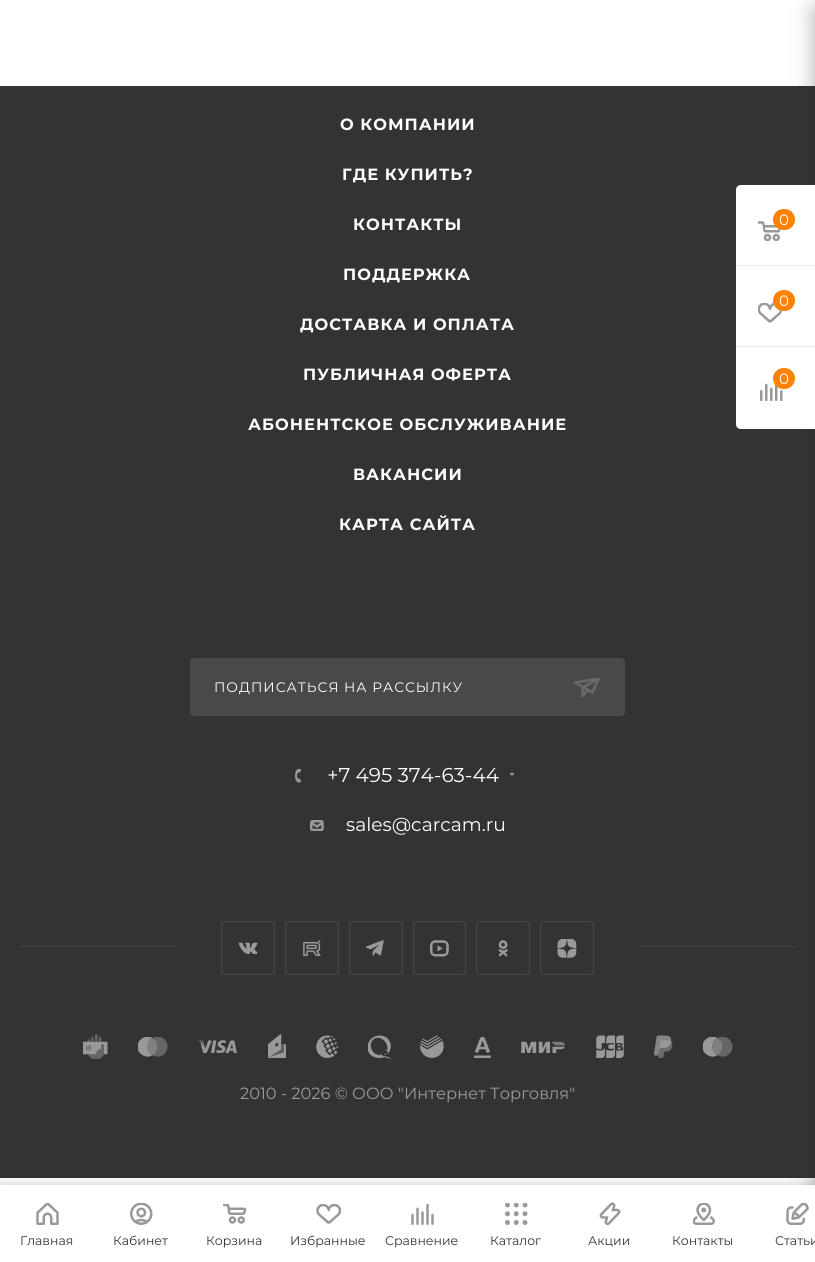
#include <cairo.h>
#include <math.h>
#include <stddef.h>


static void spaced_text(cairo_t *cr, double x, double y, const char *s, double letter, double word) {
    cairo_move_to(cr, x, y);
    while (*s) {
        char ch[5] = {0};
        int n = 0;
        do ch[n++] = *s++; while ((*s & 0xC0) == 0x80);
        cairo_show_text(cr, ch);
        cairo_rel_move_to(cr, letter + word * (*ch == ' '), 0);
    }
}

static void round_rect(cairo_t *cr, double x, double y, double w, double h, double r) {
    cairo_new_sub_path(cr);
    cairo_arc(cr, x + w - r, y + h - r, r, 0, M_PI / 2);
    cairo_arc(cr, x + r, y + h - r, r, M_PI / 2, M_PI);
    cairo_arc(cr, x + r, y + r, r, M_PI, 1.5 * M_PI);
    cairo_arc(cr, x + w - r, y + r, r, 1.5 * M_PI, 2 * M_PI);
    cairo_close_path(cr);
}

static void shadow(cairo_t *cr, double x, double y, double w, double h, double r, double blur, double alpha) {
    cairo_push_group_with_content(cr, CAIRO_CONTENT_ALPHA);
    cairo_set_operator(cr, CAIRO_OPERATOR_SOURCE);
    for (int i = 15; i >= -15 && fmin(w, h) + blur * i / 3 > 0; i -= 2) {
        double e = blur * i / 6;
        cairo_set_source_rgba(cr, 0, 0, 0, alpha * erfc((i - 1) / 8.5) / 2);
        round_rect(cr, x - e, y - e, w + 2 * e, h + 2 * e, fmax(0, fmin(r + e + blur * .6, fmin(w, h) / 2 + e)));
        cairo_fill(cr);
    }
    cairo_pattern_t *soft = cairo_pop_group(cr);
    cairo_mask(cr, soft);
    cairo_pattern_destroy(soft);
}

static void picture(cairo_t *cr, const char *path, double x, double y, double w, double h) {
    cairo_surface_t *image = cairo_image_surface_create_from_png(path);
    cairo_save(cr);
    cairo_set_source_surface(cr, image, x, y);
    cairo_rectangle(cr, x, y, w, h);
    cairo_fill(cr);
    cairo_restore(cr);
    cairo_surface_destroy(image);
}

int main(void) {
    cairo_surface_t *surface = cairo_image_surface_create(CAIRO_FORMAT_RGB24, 815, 1262);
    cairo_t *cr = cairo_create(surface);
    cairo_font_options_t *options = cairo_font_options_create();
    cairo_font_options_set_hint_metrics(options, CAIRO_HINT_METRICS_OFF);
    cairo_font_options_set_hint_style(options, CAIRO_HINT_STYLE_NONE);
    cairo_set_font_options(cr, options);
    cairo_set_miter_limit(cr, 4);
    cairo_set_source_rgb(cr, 1, 1, 1);
    cairo_paint(cr);
    cairo_set_source_rgb(cr, 0.2, 0.2, 0.2);
    cairo_rectangle(cr, 0, 86, 815, 1092);
    cairo_fill(cr);
    cairo_select_font_face(cr, "Montserrat", CAIRO_FONT_SLANT_NORMAL, CAIRO_FONT_WEIGHT_BOLD);
    cairo_set_font_size(cr, 16.25);
    cairo_set_source_rgb(cr, 1, 1, 1);
    spaced_text(cr, 340, 130, "О КОМПАНИИ", 1, 0);
    spaced_text(cr, 342, 180, "ГДЕ КУПИТЬ?", 1, 0);
    spaced_text(cr, 353, 230, "КОНТАКТЫ", 1, 0);
    spaced_text(cr, 343, 280, "ПОДДЕРЖКА", 1, 0);
    spaced_text(cr, 300, 330, "ДОСТАВКА И ОПЛАТА", 1, 0);
    spaced_text(cr, 303, 380, "ПУБЛИЧНАЯ ОФЕРТА", 1, 0);
    spaced_text(cr, 248, 430, "АБОНЕНТСКОЕ ОБСЛУЖИВАНИЕ", 1, 0);
    spaced_text(cr, 353, 480, "ВАКАНСИИ", 1, 0);
    spaced_text(cr, 339, 530, "КАРТА САЙТА", 1, 0);
    cairo_set_source_rgb(cr, 0.286, 0.286, 0.286);
    round_rect(cr, 190.5, 658.5, 434, 57, 3.5);
    cairo_fill_preserve(cr);
    cairo_set_line_width(cr, 1);
    cairo_stroke(cr);
    cairo_select_font_face(cr, "Montserrat", CAIRO_FONT_SLANT_NORMAL, CAIRO_FONT_WEIGHT_NORMAL);
    cairo_set_font_size(cr, 13.75);
    cairo_set_source_rgb(cr, 1, 1, 1);
    spaced_text(cr, 214, 692, "ПОДПИСАТЬСЯ НА РАССЫЛКУ", 1, 0);
    picture(cr, "img1.png", 574, 678, 26, 20);
    picture(cr, "img2.png", 295, 769, 6, 14);
    cairo_set_font_size(cr, 20);
    cairo_move_to(cr, 327, 782);
    cairo_show_text(cr, "+7 495 374-63-44");
    cairo_save(cr);
    cairo_rectangle(cr, 509, 773, 6, 4);
    cairo_clip(cr);
    cairo_set_source_rgb(cr, 0.6, 0.6, 0.6);
    cairo_set_fill_rule(cr, CAIRO_FILL_RULE_EVEN_ODD);
    cairo_new_path(cr);
    cairo_move_to(cr, 509, 772.5);
    cairo_line_to(cr, 515, 772.5);
    cairo_line_to(cr, 512, 776);
    cairo_close_path(cr);
    cairo_fill(cr);
    cairo_restore(cr);
    picture(cr, "img3.png", 310, 820, 14, 11);
    cairo_set_font_size(cr, 18.75);
    cairo_move_to(cr, 346, 831);
    cairo_show_text(cr, "sales@carcam.ru");
    cairo_set_source_rgb(cr, 0.263, 0.263, 0.263);
    cairo_rectangle(cr, 19, 946, 777, 1);
    cairo_fill(cr);
    cairo_set_source_rgb(cr, 0.2, 0.2, 0.2);
    cairo_rectangle(cr, 176, 946, 463, 1);
    cairo_fill(cr);
    picture(cr, "img4.png", 238, 942, 20, 12);
    round_rect(cr, 221.5, 921.5, 53, 53, 3.5);
    cairo_set_source_rgb(cr, 0.278, 0.278, 0.278);
    cairo_stroke(cr);
    picture(cr, "img5.png", 303, 940, 18, 16);
    round_rect(cr, 285.5, 921.5, 53, 53, 3.5);
    cairo_stroke(cr);
    picture(cr, "img6.png", 366, 940, 18, 16);
    round_rect(cr, 349.5, 921.5, 53, 53, 3.5);
    cairo_stroke(cr);
    picture(cr, "img7.png", 430, 940, 19, 17);
    round_rect(cr, 413.5, 921.5, 52, 53, 3.5);
    cairo_stroke(cr);
    picture(cr, "img8.png", 498, 940, 10, 17);
    round_rect(cr, 476.5, 921.5, 53, 53, 3.5);
    cairo_stroke(cr);
    picture(cr, "img9.png", 557, 939, 20, 19);
    round_rect(cr, 540.5, 921.5, 53, 53, 3.5);
    cairo_stroke(cr);
    picture(cr, "img10.png", 83, 1034, 25, 25);
    picture(cr, "img11.png", 138, 1037, 30, 20);
    picture(cr, "img12.png", 198, 1040, 39, 13);
    picture(cr, "img13.png", 268, 1034, 18, 24);
    picture(cr, "img14.png", 316, 1035, 22, 23);
    picture(cr, "img15.png", 368, 1035, 23, 24);
    picture(cr, "img16.png", 420, 1035, 24, 23);
    picture(cr, "img17.png", 474, 1036, 17, 22);
    picture(cr, "img18.png", 521, 1041, 44, 12);
    picture(cr, "img19.png", 596, 1035, 28, 23);
    picture(cr, "img20.png", 654, 1035, 19, 23);
    picture(cr, "img11.png", 703, 1037, 30, 20);
    cairo_set_font_size(cr, 16.25);
    cairo_set_source_rgb(cr, 0.6, 0.6, 0.6);
    cairo_move_to(cr, 240, 1099);
    cairo_show_text(cr, "2010 - 2026 © ООО \"Интернет Торговля\"");
    cairo_set_source_rgb(cr, 0.173, 0.173, 0.173);
    shadow(cr, 815, 8, 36, 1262, 2.5, 11, 0.4);
    cairo_set_source_rgb(cr, 1, 1, 1);
    cairo_new_path(cr);
    cairo_move_to(cr, 741, 185);
    cairo_line_to(cr, 815, 185);
    cairo_line_to(cr, 815, 429);
    cairo_line_to(cr, 741, 429);
    cairo_curve_to(cr, 738, 429, 736, 427, 736, 424);
    cairo_line_to(cr, 736, 190);
    cairo_curve_to(cr, 736, 187, 738, 185, 741, 185);
    cairo_close_path(cr);
    cairo_fill(cr);
    cairo_set_source_rgb(cr, 0.925, 0.925, 0.925);
    cairo_rectangle(cr, 736, 265, 79, 1);
    cairo_fill(cr);
    picture(cr, "img21.png", 758, 221, 23, 20);
    cairo_set_source_rgb(cr, 1, 0.51, 0);
    round_rect(cr, 773, 209, 22, 21, 10.5);
    cairo_fill(cr);
    cairo_set_font_size(cr, 15);
    cairo_set_source_rgb(cr, 1, 1, 1);
    cairo_move_to(cr, 779, 225);
    cairo_show_text(cr, "0");
    cairo_set_source_rgb(cr, 0.925, 0.925, 0.925);
    cairo_rectangle(cr, 736, 346, 79, 1);
    cairo_fill(cr);
    picture(cr, "img22.png", 758, 303, 25, 20);
    cairo_set_source_rgb(cr, 1, 0.51, 0);
    round_rect(cr, 773, 290, 22, 21, 10.5);
    cairo_fill(cr);
    cairo_set_source_rgb(cr, 1, 1, 1);
    cairo_move_to(cr, 779, 306);
    cairo_show_text(cr, "0");
    picture(cr, "img23.png", 760, 383, 23, 18);
    cairo_set_source_rgb(cr, 1, 0.51, 0);
    round_rect(cr, 773, 368, 22, 21, 10.5);
    cairo_fill(cr);
    cairo_set_source_rgb(cr, 1, 1, 1);
    cairo_move_to(cr, 779, 384);
    cairo_show_text(cr, "0");
    cairo_set_source_rgb(cr, 0, 0, 0);
    shadow(cr, 0, 1183, 815, 77, 0, 5, 0.15);
    cairo_set_source_rgb(cr, 1, 1, 1);
    cairo_rectangle(cr, 0, 1185, 815, 77);
    cairo_fill(cr);
    picture(cr, "img24.png", 36, 1203, 23, 22);
    cairo_set_font_size(cr, 12.5);
    cairo_set_source_rgb(cr, 0.2, 0.2, 0.2);
    cairo_move_to(cr, 20, 1245);
    cairo_show_text(cr, "Главная");
    picture(cr, "img25.png", 130, 1203, 23, 22);
    cairo_move_to(cr, 113, 1245);
    cairo_show_text(cr, "Кабинет");
    picture(cr, "img26.png", 223, 1204, 24, 20);
    cairo_move_to(cr, 206, 1245);
    cairo_show_text(cr, "Корзина");
    picture(cr, "img27.png", 316, 1204, 25, 20);
    cairo_move_to(cr, 290, 1245);
    cairo_show_text(cr, "Избранные");
    picture(cr, "img28.png", 411, 1204, 23, 21);
    cairo_move_to(cr, 385, 1245);
    cairo_show_text(cr, "Сравнение");
    picture(cr, "img29.png", 505, 1203, 23, 22);
    cairo_move_to(cr, 490, 1245);
    cairo_show_text(cr, "Каталог");
    picture(cr, "img30.png", 599, 1202, 22, 24);
    cairo_move_to(cr, 588, 1245);
    cairo_show_text(cr, "Акции");
    picture(cr, "img31.png", 693, 1203, 22, 22);
    cairo_move_to(cr, 672, 1245);
    cairo_show_text(cr, "Контакты");
    picture(cr, "img32.png", 786, 1203, 23, 22);
    cairo_move_to(cr, 775, 1245);
    cairo_show_text(cr, "Статьи");
    cairo_surface_write_to_png(surface, "page.png");
    cairo_font_options_destroy(options);
    cairo_destroy(cr);
    cairo_surface_destroy(surface);
    return 0;
}
